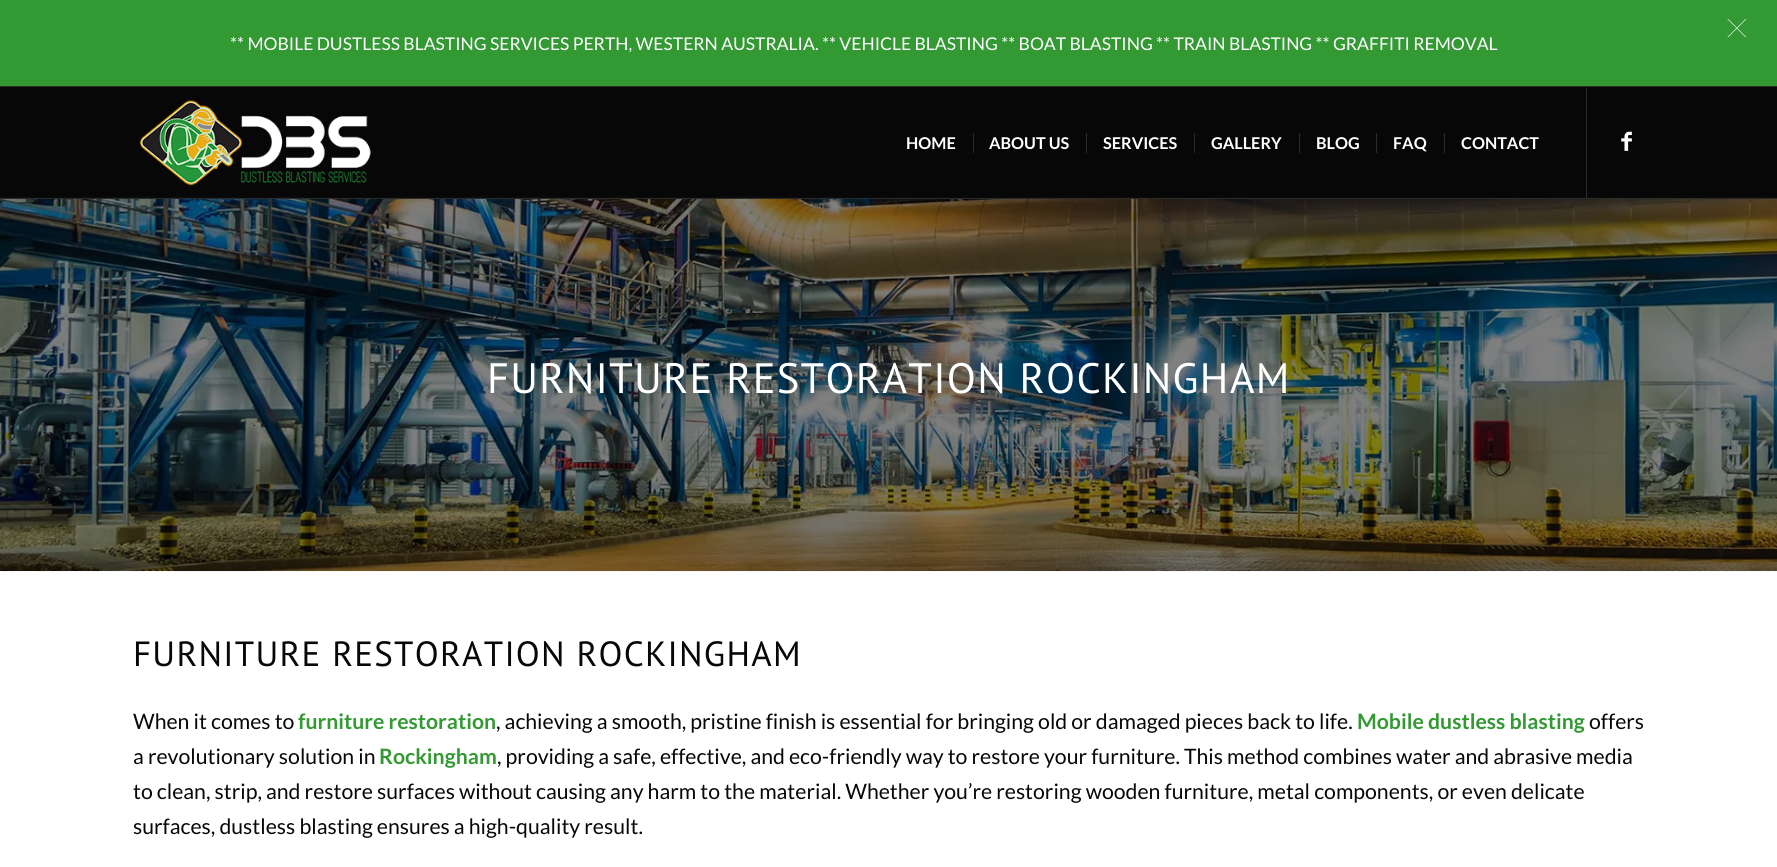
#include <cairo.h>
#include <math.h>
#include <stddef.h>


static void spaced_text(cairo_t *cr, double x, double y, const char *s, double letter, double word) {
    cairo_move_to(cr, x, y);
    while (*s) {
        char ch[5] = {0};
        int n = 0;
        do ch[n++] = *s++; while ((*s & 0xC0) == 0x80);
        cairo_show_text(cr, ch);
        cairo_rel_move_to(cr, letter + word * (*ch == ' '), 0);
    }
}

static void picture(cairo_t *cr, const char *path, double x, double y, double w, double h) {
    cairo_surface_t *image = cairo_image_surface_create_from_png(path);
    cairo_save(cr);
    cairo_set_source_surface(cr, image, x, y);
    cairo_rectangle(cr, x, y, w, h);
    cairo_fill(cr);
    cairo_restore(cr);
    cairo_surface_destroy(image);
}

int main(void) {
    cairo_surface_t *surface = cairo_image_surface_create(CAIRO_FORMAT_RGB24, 1777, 867);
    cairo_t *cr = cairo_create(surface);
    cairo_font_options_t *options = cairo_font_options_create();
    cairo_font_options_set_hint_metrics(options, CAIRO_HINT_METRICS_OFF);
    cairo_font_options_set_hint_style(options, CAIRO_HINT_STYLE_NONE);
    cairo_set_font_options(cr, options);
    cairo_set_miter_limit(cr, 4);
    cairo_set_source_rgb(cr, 0.031, 0.031, 0.031);
    cairo_paint(cr);
    cairo_set_source_rgb(cr, 0.2, 0.6, 0.2);
    cairo_rectangle(cr, 0, 0, 1777, 86);
    cairo_fill(cr);
    picture(cr, "img1.png", 1727, 18, 20, 20);
    cairo_select_font_face(cr, "Lato", CAIRO_FONT_SLANT_NORMAL, CAIRO_FONT_WEIGHT_NORMAL);
    cairo_set_font_size(cr, 17.5);
    cairo_set_source_rgb(cr, 1, 1, 1);
    cairo_move_to(cr, 230, 50);
    cairo_show_text(cr, "** MOBILE DUSTLESS BLASTING SERVICES PERTH, WESTERN AUSTRALIA. ** VEHICLE BLASTING ** BOAT BLASTING ** TRAIN BLASTING ** GRAFFITI REMOVAL");
    cairo_set_source_rgb(cr, 0.169, 0.169, 0.169);
    cairo_rectangle(cr, 0, 86, 1777, 1);
    cairo_fill(cr);
    picture(cr, "img4.png", 0, 196, 1777, 375);
    cairo_rectangle(cr, 0, 198, 1777, 1);
    cairo_fill(cr);
    picture(cr, "img2.png", 140, 100, 231, 86);
    cairo_set_source_rgba(cr, 0.031, 0.031, 0.031, 0.95);
    cairo_rectangle(cr, 0, 196, 1777, 2);
    cairo_fill(cr);
    cairo_set_source_rgb(cr, 0.169, 0.169, 0.169);
    cairo_rectangle(cr, 1586, 88, 1, 110);
    cairo_fill(cr);
    cairo_select_font_face(cr, "Lato", CAIRO_FONT_SLANT_NORMAL, CAIRO_FONT_WEIGHT_BOLD);
    cairo_set_font_size(cr, 16.25);
    cairo_set_source_rgb(cr, 1, 1, 1);
    cairo_move_to(cr, 906, 149);
    cairo_show_text(cr, "HOME");
    cairo_move_to(cr, 989, 149);
    cairo_show_text(cr, "ABOUT US");
    cairo_set_source_rgb(cr, 0.169, 0.169, 0.169);
    cairo_rectangle(cr, 973, 133, 1, 20);
    cairo_fill(cr);
    cairo_set_source_rgb(cr, 1, 1, 1);
    cairo_move_to(cr, 1103, 149);
    cairo_show_text(cr, "SERVICES");
    cairo_set_source_rgb(cr, 0.169, 0.169, 0.169);
    cairo_rectangle(cr, 1086, 133, 1, 20);
    cairo_fill(cr);
    cairo_set_source_rgb(cr, 1, 1, 1);
    cairo_move_to(cr, 1211, 149);
    cairo_show_text(cr, "GALLERY");
    cairo_set_source_rgb(cr, 0.169, 0.169, 0.169);
    cairo_rectangle(cr, 1194, 133, 1, 20);
    cairo_fill(cr);
    cairo_set_source_rgb(cr, 1, 1, 1);
    cairo_move_to(cr, 1316, 149);
    cairo_show_text(cr, "BLOG");
    cairo_set_source_rgb(cr, 0.169, 0.169, 0.169);
    cairo_rectangle(cr, 1299, 133, 1, 20);
    cairo_fill(cr);
    cairo_set_source_rgb(cr, 1, 1, 1);
    cairo_move_to(cr, 1393, 149);
    cairo_show_text(cr, "FAQ");
    cairo_set_source_rgb(cr, 0.169, 0.169, 0.169);
    cairo_rectangle(cr, 1376, 133, 1, 20);
    cairo_fill(cr);
    cairo_set_source_rgb(cr, 1, 1, 1);
    cairo_move_to(cr, 1461, 149);
    cairo_show_text(cr, "CONTACT");
    cairo_set_source_rgb(cr, 0.169, 0.169, 0.169);
    cairo_rectangle(cr, 1444, 133, 1, 20);
    cairo_fill(cr);
    picture(cr, "img3.png", 1621, 131, 11, 20);
    cairo_select_font_face(cr, "PT Sans", CAIRO_FONT_SLANT_NORMAL, CAIRO_FONT_WEIGHT_NORMAL);
    cairo_set_font_size(cr, 42.5);
    cairo_set_source_rgb(cr, 1, 1, 1);
    spaced_text(cr, 487, 393, "FURNITURE RESTORATION ROCKINGHAM", 1.25, 0);
    cairo_rectangle(cr, 0, 572, 1777, 295);
    cairo_fill(cr);
    cairo_set_source_rgb(cr, 0.965, 0.965, 0.965);
    cairo_rectangle(cr, 0, 571, 1777, 1);
    cairo_fill(cr);
    cairo_set_font_size(cr, 35);
    cairo_set_source_rgb(cr, 0.031, 0.031, 0.031);
    spaced_text(cr, 133, 666, "FURNITURE RESTORATION ROCKINGHAM", 1.25, 0);
    cairo_select_font_face(cr, "Lato", CAIRO_FONT_SLANT_NORMAL, CAIRO_FONT_WEIGHT_NORMAL);
    cairo_set_font_size(cr, 21.25);
    cairo_move_to(cr, 133, 729);
    cairo_show_text(cr, "When it comes to");
    cairo_select_font_face(cr, "Lato", CAIRO_FONT_SLANT_NORMAL, CAIRO_FONT_WEIGHT_BOLD);
    cairo_set_source_rgb(cr, 0.2, 0.6, 0.2);
    cairo_move_to(cr, 298, 729);
    cairo_show_text(cr, "furniture restoration");
    cairo_select_font_face(cr, "Lato", CAIRO_FONT_SLANT_NORMAL, CAIRO_FONT_WEIGHT_NORMAL);
    cairo_set_source_rgb(cr, 0.031, 0.031, 0.031);
    cairo_move_to(cr, 496, 729);
    cairo_show_text(cr, ", achieving a smooth, pristine finish is essential for bringing old or damaged pieces back to life.");
    cairo_select_font_face(cr, "Lato", CAIRO_FONT_SLANT_NORMAL, CAIRO_FONT_WEIGHT_BOLD);
    cairo_set_source_rgb(cr, 0.2, 0.6, 0.2);
    cairo_move_to(cr, 1357, 729);
    cairo_show_text(cr, "Mobile dustless blasting");
    cairo_select_font_face(cr, "Lato", CAIRO_FONT_SLANT_NORMAL, CAIRO_FONT_WEIGHT_NORMAL);
    cairo_set_source_rgb(cr, 0.031, 0.031, 0.031);
    cairo_move_to(cr, 1589, 729);
    cairo_show_text(cr, "offers");
    cairo_move_to(cr, 133, 764);
    cairo_show_text(cr, "a revolutionary solution in");
    cairo_select_font_face(cr, "Lato", CAIRO_FONT_SLANT_NORMAL, CAIRO_FONT_WEIGHT_BOLD);
    cairo_set_source_rgb(cr, 0.2, 0.6, 0.2);
    cairo_move_to(cr, 379, 764);
    cairo_show_text(cr, "Rockingham");
    cairo_select_font_face(cr, "Lato", CAIRO_FONT_SLANT_NORMAL, CAIRO_FONT_WEIGHT_NORMAL);
    cairo_set_source_rgb(cr, 0.031, 0.031, 0.031);
    cairo_move_to(cr, 497, 764);
    cairo_show_text(cr, ", providing a safe, effective, and eco-friendly way to restore your furniture. This method combines water and abrasive media");
    cairo_move_to(cr, 133, 799);
    cairo_show_text(cr, "to clean, strip, and restore surfaces without causing any harm to the material. Whether you’re restoring wooden furniture, metal components, or even delicate");
    cairo_move_to(cr, 133, 834);
    cairo_show_text(cr, "surfaces, dustless blasting ensures a high-quality result.");
    cairo_surface_write_to_png(surface, "page.png");
    cairo_font_options_destroy(options);
    cairo_destroy(cr);
    cairo_surface_destroy(surface);
    return 0;
}
